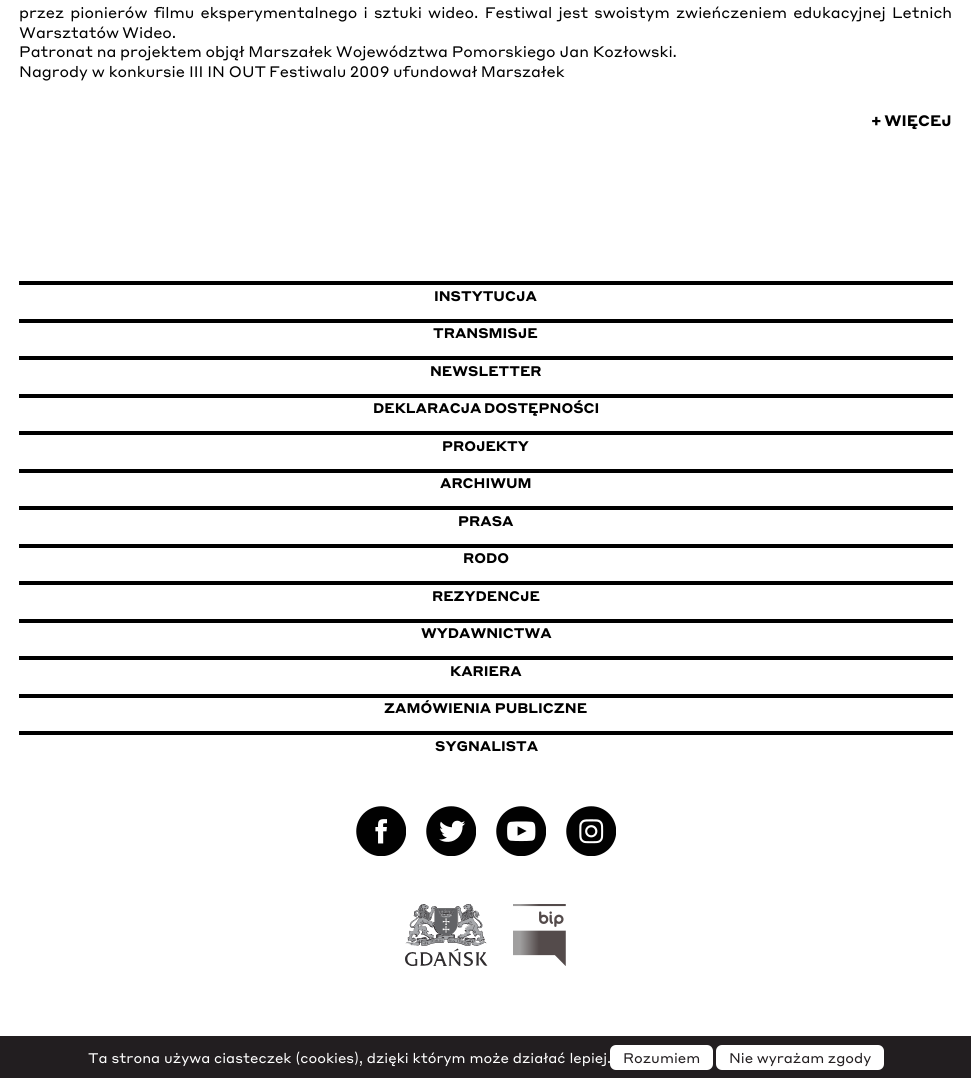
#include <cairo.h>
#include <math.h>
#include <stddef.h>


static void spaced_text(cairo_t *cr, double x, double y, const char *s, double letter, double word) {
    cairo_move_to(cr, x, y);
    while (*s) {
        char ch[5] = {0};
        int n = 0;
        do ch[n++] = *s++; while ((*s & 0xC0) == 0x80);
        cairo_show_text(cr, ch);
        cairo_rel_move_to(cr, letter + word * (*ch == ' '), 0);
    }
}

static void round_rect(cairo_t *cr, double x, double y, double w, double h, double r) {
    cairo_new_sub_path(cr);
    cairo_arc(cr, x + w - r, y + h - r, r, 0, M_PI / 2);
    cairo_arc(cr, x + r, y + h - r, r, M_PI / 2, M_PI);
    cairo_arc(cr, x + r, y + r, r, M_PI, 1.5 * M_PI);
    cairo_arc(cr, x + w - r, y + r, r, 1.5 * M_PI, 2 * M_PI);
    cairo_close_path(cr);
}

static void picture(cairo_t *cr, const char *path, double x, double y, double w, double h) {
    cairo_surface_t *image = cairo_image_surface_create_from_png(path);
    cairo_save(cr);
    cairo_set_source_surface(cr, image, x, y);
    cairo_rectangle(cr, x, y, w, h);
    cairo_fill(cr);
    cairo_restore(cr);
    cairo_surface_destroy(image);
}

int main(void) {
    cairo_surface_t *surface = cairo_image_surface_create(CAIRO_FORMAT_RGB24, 971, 1078);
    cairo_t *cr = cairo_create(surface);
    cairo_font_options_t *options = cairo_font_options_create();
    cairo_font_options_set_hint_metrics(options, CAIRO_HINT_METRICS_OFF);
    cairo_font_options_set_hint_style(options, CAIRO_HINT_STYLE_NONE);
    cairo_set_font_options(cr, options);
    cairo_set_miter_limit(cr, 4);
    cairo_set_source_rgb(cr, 1, 1, 1);
    cairo_paint(cr);
    cairo_select_font_face(cr, "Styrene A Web", CAIRO_FONT_SLANT_NORMAL, CAIRO_FONT_WEIGHT_NORMAL);
    cairo_set_font_size(cr, 15);
    cairo_set_source_rgb(cr, 0, 0, 0);
    spaced_text(cr, 19, 18, "przez pionierów filmu eksperymentalnego i sztuki wideo. Festiwal jest swoistym zwieńczeniem edukacyjnej Letnich", 0, 2.25);
    spaced_text(cr, 19, 38, "Warsztatów Wideo.", 0, -1);
    spaced_text(cr, 19, 57, "Patronat na projektem objął Marszałek Województwa Pomorskiego Jan Kozłowski.", 0, -0.25);
    cairo_move_to(cr, 19, 77);
    cairo_show_text(cr, "Nagrody w konkursie III IN OUT");
    spaced_text(cr, 269, 77, "Festiwalu 2009 ufundował Marszałek", 0, -0.5);
    cairo_select_font_face(cr, "Styrene A Web", CAIRO_FONT_SLANT_NORMAL, CAIRO_FONT_WEIGHT_BOLD);
    spaced_text(cr, 871, 126, "+ WIĘCEJ", 0, -1);
    cairo_rectangle(cr, 19, 281, 934, 4);
    cairo_fill(cr);
    cairo_set_font_size(cr, 13.75);
    cairo_move_to(cr, 434, 301);
    cairo_show_text(cr, "INSTYTUCJA");
    cairo_rectangle(cr, 19, 319, 934, 4);
    cairo_fill(cr);
    cairo_move_to(cr, 433, 338);
    cairo_show_text(cr, "TRANSMISJE");
    cairo_rectangle(cr, 19, 356, 934, 4);
    cairo_fill(cr);
    cairo_move_to(cr, 430, 376);
    cairo_show_text(cr, "NEWSLETTER");
    cairo_rectangle(cr, 19, 394, 934, 4);
    cairo_fill(cr);
    spaced_text(cr, 373, 413, "DEKLARACJA DOSTĘPNOŚCI", 0, -1);
    cairo_rectangle(cr, 19, 431, 934, 4);
    cairo_fill(cr);
    cairo_move_to(cr, 442, 451);
    cairo_show_text(cr, "PROJEKTY");
    cairo_rectangle(cr, 19, 469, 934, 4);
    cairo_fill(cr);
    cairo_move_to(cr, 440, 488);
    cairo_show_text(cr, "ARCHIWUM");
    cairo_rectangle(cr, 19, 506, 934, 4);
    cairo_fill(cr);
    cairo_move_to(cr, 458, 526);
    cairo_show_text(cr, "PRASA");
    cairo_rectangle(cr, 19, 544, 934, 4);
    cairo_fill(cr);
    cairo_move_to(cr, 463, 563);
    cairo_show_text(cr, "RODO");
    cairo_rectangle(cr, 19, 581, 934, 4);
    cairo_fill(cr);
    cairo_move_to(cr, 432, 601);
    cairo_show_text(cr, "REZYDENCJE");
    cairo_rectangle(cr, 19, 619, 934, 4);
    cairo_fill(cr);
    cairo_move_to(cr, 421, 638);
    cairo_show_text(cr, "WYDAWNICTWA");
    cairo_rectangle(cr, 19, 656, 934, 4);
    cairo_fill(cr);
    cairo_move_to(cr, 450, 676);
    cairo_show_text(cr, "KARIERA");
    cairo_rectangle(cr, 19, 694, 934, 4);
    cairo_fill(cr);
    cairo_move_to(cr, 384, 713);
    cairo_show_text(cr, "ZAMÓWIENIA PUBLICZNE");
    cairo_rectangle(cr, 19, 731, 934, 4);
    cairo_fill(cr);
    cairo_move_to(cr, 435, 751);
    cairo_show_text(cr, "SYGNALISTA");
    picture(cr, "img1.png", 356, 806, 50, 50);
    picture(cr, "img2.png", 426, 806, 50, 50);
    picture(cr, "img3.png", 496, 806, 50, 50);
    picture(cr, "img4.png", 566, 806, 50, 50);
    picture(cr, "img5.png", 405, 904, 83, 62);
    picture(cr, "img6.png", 513, 904, 53, 62);
    cairo_set_source_rgb(cr, 0.133, 0.118, 0.125);
    cairo_rectangle(cr, 0, 1036, 971, 42);
    cairo_fill(cr);
    cairo_select_font_face(cr, "Styrene A Web", CAIRO_FONT_SLANT_NORMAL, CAIRO_FONT_WEIGHT_NORMAL);
    cairo_set_source_rgb(cr, 1, 1, 1);
    spaced_text(cr, 88, 1063, "Ta strona używa ciasteczek (cookies), dzięki którym może działać lepiej.", 0, 0.25);
    round_rect(cr, 610, 1045, 103, 25, 6);
    cairo_fill(cr);
    cairo_set_source_rgb(cr, 0.133, 0.118, 0.125);
    cairo_move_to(cr, 623, 1063);
    cairo_show_text(cr, "Rozumiem");
    cairo_set_source_rgb(cr, 1, 1, 1);
    round_rect(cr, 716, 1045, 168, 25, 6);
    cairo_fill(cr);
    cairo_set_source_rgb(cr, 0.133, 0.118, 0.125);
    cairo_move_to(cr, 729, 1063);
    cairo_show_text(cr, "Nie wyrażam zgody");
    cairo_surface_write_to_png(surface, "page.png");
    cairo_font_options_destroy(options);
    cairo_destroy(cr);
    cairo_surface_destroy(surface);
    return 0;
}
